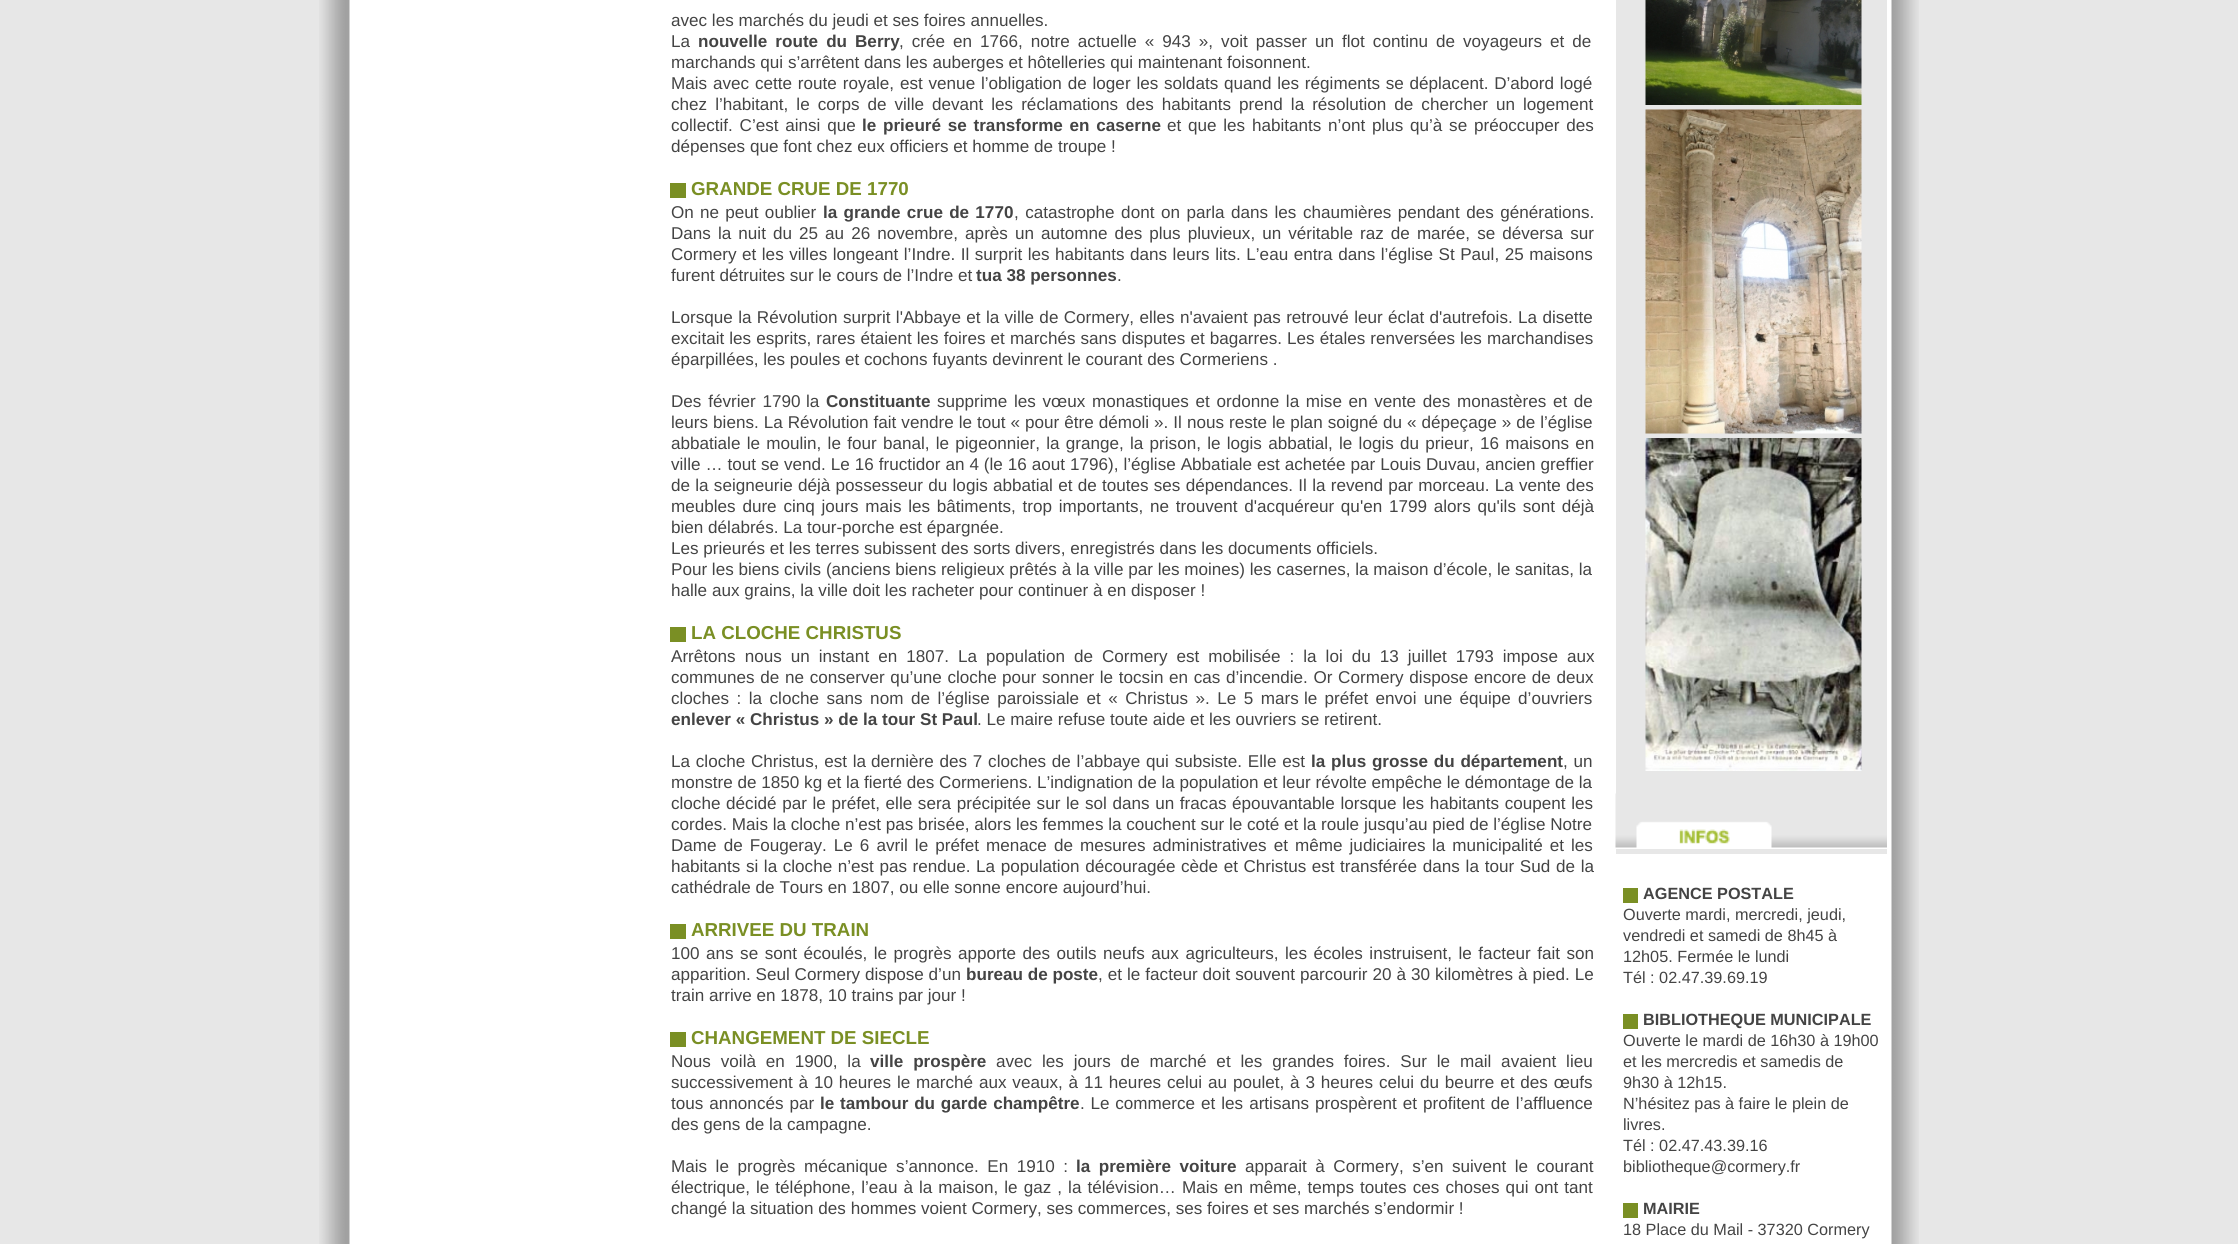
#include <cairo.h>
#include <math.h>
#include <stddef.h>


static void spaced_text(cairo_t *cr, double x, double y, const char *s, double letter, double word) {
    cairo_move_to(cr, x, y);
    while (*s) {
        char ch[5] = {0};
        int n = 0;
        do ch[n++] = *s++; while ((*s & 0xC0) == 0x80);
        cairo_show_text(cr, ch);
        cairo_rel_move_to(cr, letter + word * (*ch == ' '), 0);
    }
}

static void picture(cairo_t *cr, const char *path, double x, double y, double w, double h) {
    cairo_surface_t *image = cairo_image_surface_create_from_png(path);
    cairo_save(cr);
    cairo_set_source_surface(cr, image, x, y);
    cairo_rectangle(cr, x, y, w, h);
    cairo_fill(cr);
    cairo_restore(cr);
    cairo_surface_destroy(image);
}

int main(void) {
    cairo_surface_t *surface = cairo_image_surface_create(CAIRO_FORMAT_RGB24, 2238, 1244);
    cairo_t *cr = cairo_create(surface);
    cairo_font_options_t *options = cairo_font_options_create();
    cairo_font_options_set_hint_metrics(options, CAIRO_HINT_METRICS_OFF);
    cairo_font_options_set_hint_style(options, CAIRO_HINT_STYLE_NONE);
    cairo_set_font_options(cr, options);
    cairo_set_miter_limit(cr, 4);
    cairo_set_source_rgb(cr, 0.906, 0.906, 0.906);
    cairo_paint(cr);
    picture(cr, "img1.png", 319, 0, 1600, 1244);
    cairo_select_font_face(cr, "Liberation Sans", CAIRO_FONT_SLANT_NORMAL, CAIRO_FONT_WEIGHT_NORMAL);
    cairo_set_font_size(cr, 17.1);
    cairo_set_source_rgb(cr, 0.267, 0.267, 0.267);
    cairo_move_to(cr, 671, 26);
    cairo_show_text(cr, "avec les marchés du jeudi et ses foires annuelles.");
    cairo_move_to(cr, 671, 47);
    cairo_show_text(cr, "La");
    cairo_select_font_face(cr, "Liberation Sans", CAIRO_FONT_SLANT_NORMAL, CAIRO_FONT_WEIGHT_BOLD);
    spaced_text(cr, 698, 47, "nouvelle route du Berry", 0, 3.25);
    cairo_select_font_face(cr, "Liberation Sans", CAIRO_FONT_SLANT_NORMAL, CAIRO_FONT_WEIGHT_NORMAL);
    spaced_text(cr, 899, 47, ", crée en 1766, notre actuelle « 943 », voit passer un flot continu de voyageurs et de", 0, 3.25);
    cairo_move_to(cr, 671, 68);
    cairo_show_text(cr, "marchands qui s’arrêtent dans les auberges et hôtelleries qui maintenant foisonnent.");
    spaced_text(cr, 671, 89, "Mais avec cette route royale, est venue l’obligation de loger les", 0, 1.1);
    spaced_text(cr, 1164, 89, "soldats quand les régiments se déplacent. D’abord logé", 0, 1);
    spaced_text(cr, 671, 110, "chez l’habitant, le corps de ville devant les réclamations des habitants prend la résolution de chercher un logement", 0, 3.25);
    spaced_text(cr, 671, 131, "collectif. C’est ainsi que", 0, 2);
    cairo_select_font_face(cr, "Liberation Sans", CAIRO_FONT_SLANT_NORMAL, CAIRO_FONT_WEIGHT_BOLD);
    spaced_text(cr, 862, 131, "le prieuré se transforme en caserne", 0, 2);
    cairo_select_font_face(cr, "Liberation Sans", CAIRO_FONT_SLANT_NORMAL, CAIRO_FONT_WEIGHT_NORMAL);
    spaced_text(cr, 1167, 131, "et que les habitants n’ont plus qu’à se préoccuper des", 0, 2);
    cairo_move_to(cr, 671, 152);
    cairo_show_text(cr, "dépenses que font chez eux officiers et homme de troupe !");
    cairo_select_font_face(cr, "Liberation Sans", CAIRO_FONT_SLANT_NORMAL, CAIRO_FONT_WEIGHT_BOLD);
    cairo_set_font_size(cr, 18.75);
    cairo_set_source_rgb(cr, 0.478, 0.561, 0.141);
    cairo_move_to(cr, 691, 195);
    cairo_show_text(cr, "GRANDE CRUE DE 1770");
    cairo_rectangle(cr, 670, 183, 16, 15);
    cairo_fill(cr);
    cairo_select_font_face(cr, "Liberation Sans", CAIRO_FONT_SLANT_NORMAL, CAIRO_FONT_WEIGHT_NORMAL);
    cairo_set_font_size(cr, 17.1);
    cairo_set_source_rgb(cr, 0.267, 0.267, 0.267);
    spaced_text(cr, 671, 218, "On ne peut oublier", 0, 1.5);
    cairo_select_font_face(cr, "Liberation Sans", CAIRO_FONT_SLANT_NORMAL, CAIRO_FONT_WEIGHT_BOLD);
    spaced_text(cr, 823, 218, "la grande crue de 1770", 0, 1.5);
    cairo_select_font_face(cr, "Liberation Sans", CAIRO_FONT_SLANT_NORMAL, CAIRO_FONT_WEIGHT_NORMAL);
    spaced_text(cr, 1014, 218, ", catastrophe dont on parla dans les chaumières pendant des générations.", 0, 1.75);
    spaced_text(cr, 671, 239, "Dans la nuit du 25 au 26 novembre, après un automne des plus pluvieux, un véritable raz de marée, se déversa sur", 0, 2.3);
    spaced_text(cr, 671, 260, "Cormery et les villes longeant l’Indre. Il surprit les habitants dans leurs lits. L’eau entra dans l’église St Paul, 25 maisons", 0, 0.75);
    cairo_move_to(cr, 671, 281);
    cairo_show_text(cr, "furent détruites sur le cours de l’Indre et");
    cairo_select_font_face(cr, "Liberation Sans", CAIRO_FONT_SLANT_NORMAL, CAIRO_FONT_WEIGHT_BOLD);
    cairo_move_to(cr, 976, 281);
    cairo_show_text(cr, "tua 38 personnes");
    cairo_select_font_face(cr, "Liberation Sans", CAIRO_FONT_SLANT_NORMAL, CAIRO_FONT_WEIGHT_NORMAL);
    cairo_move_to(cr, 1117, 281);
    cairo_show_text(cr, ".");
    spaced_text(cr, 671, 323, "Lorsque la Révolution surprit l'Abbaye et la ville de Cormery, elles n'avaient pas retrouvé leur éclat d'autrefois. La disette", 0, 0.6);
    spaced_text(cr, 671, 344, "excitait les esprits, rares étaient les foires et marchés sans disputes et bagarres. Les étales renversées les marchandises", 0, 0.3);
    cairo_move_to(cr, 671, 365);
    cairo_show_text(cr, "éparpillées, les poules et cochons fuyants devinrent le courant des Cormeriens .");
    spaced_text(cr, 671, 407, "Des février 1790", 0, 2);
    cairo_move_to(cr, 806, 407);
    cairo_show_text(cr, "la");
    cairo_select_font_face(cr, "Liberation Sans", CAIRO_FONT_SLANT_NORMAL, CAIRO_FONT_WEIGHT_BOLD);
    cairo_move_to(cr, 826, 407);
    cairo_show_text(cr, "Constituante");
    cairo_select_font_face(cr, "Liberation Sans", CAIRO_FONT_SLANT_NORMAL, CAIRO_FONT_WEIGHT_NORMAL);
    spaced_text(cr, 937, 407, "supprime les vœux monastiques et ordonne la mise en vente des monastères et de", 0, 1.9);
    spaced_text(cr, 671, 428, "leurs biens. La Révolution fait vendre le tout « pour être démoli ». Il nous reste le plan soigné du « dépeçage » de l’église", 0, 0.25);
    spaced_text(cr, 671, 449, "abbatiale le moulin, le four banal, le pigeonnier, la grange, la prison, le logis abbatial, le logis du prieur, 16 maisons en", 0, 1.5);
    spaced_text(cr, 671, 470, "ville … tout se vend. Le 16 fructidor an 4 (le 16 aout 1796), l’église Abbatiale est achetée par Louis Duvau, ancien greffier", 0, 0.2);
    spaced_text(cr, 671, 491, "de la seigneurie déjà possesseur du logis abbatial et de toutes ses dépendances. Il la revend par morceau. La vente des", 0, 0.5);
    spaced_text(cr, 671, 512, "meubles dure cinq jours mais les bâtiments, trop importants, ne trouvent d'acquéreur qu'en 1799 alors qu'ils sont déjà", 0, 2);
    cairo_move_to(cr, 671, 533);
    cairo_show_text(cr, "bien délabrés. La tour-porche est épargnée.");
    cairo_move_to(cr, 671, 554);
    cairo_show_text(cr, "Les prieurés et les terres subissent des sorts divers, enregistrés dans les documents officiels.");
    cairo_move_to(cr, 671, 575);
    cairo_show_text(cr, "Pour les biens civils (anciens biens religieux prêtés à la ville par les moines) les casernes, la maison d’école, le sanitas, la");
    cairo_move_to(cr, 671, 596);
    cairo_show_text(cr, "halle aux grains, la ville doit les racheter pour continuer à en disposer !");
    cairo_select_font_face(cr, "Liberation Sans", CAIRO_FONT_SLANT_NORMAL, CAIRO_FONT_WEIGHT_BOLD);
    cairo_set_font_size(cr, 18.75);
    cairo_set_source_rgb(cr, 0.478, 0.561, 0.141);
    cairo_move_to(cr, 691, 639);
    cairo_show_text(cr, "LA CLOCHE CHRISTUS");
    cairo_rectangle(cr, 670, 627, 16, 15);
    cairo_fill(cr);
    cairo_select_font_face(cr, "Liberation Sans", CAIRO_FONT_SLANT_NORMAL, CAIRO_FONT_WEIGHT_NORMAL);
    cairo_set_font_size(cr, 17.1);
    cairo_set_source_rgb(cr, 0.267, 0.267, 0.267);
    spaced_text(cr, 671, 662, "Arrêtons nous un instant en 1807. La population de Cormery est mobilisée : la loi du 13 juillet 1793 impose aux", 0, 4.25);
    spaced_text(cr, 671, 683, "communes de ne conserver qu’une cloche", 0, 0.9);
    spaced_text(cr, 1002, 683, "pour sonner le tocsin en cas d’incendie. Or Cormery dispose encore de deux", 0, 0.9);
    spaced_text(cr, 671, 704, "cloches : la cloche sans nom de l’église paroissiale et « Christus ». Le 5 mars", 0, 2.75);
    spaced_text(cr, 1304, 704, "le préfet envoi une équipe d’ouvriers", 0, 2.5);
    cairo_select_font_face(cr, "Liberation Sans", CAIRO_FONT_SLANT_NORMAL, CAIRO_FONT_WEIGHT_BOLD);
    cairo_move_to(cr, 671, 725);
    cairo_show_text(cr, "enlever « Christus » de la tour St Paul");
    cairo_select_font_face(cr, "Liberation Sans", CAIRO_FONT_SLANT_NORMAL, CAIRO_FONT_WEIGHT_NORMAL);
    cairo_move_to(cr, 977, 725);
    cairo_show_text(cr, ". Le maire refuse toute aide et les ouvriers se retirent.");
    spaced_text(cr, 671, 767, "La cloche Christus, est la", 0, 1);
    spaced_text(cr, 871, 767, "dernière des 7 cloches de l’abbaye qui subsiste. Elle est", 0, 1);
    cairo_select_font_face(cr, "Liberation Sans", CAIRO_FONT_SLANT_NORMAL, CAIRO_FONT_WEIGHT_BOLD);
    spaced_text(cr, 1311, 767, "la plus grosse du département", 0, 1);
    cairo_select_font_face(cr, "Liberation Sans", CAIRO_FONT_SLANT_NORMAL, CAIRO_FONT_WEIGHT_NORMAL);
    spaced_text(cr, 1563, 767, ", un", 0, 1);
    cairo_move_to(cr, 671, 788);
    cairo_show_text(cr, "monstre de 1850 kg et la fierté des Cormeriens. L’indignation de la population et leur révolte empêche le démontage de la");
    spaced_text(cr, 671, 809, "cloche décidé par le préfet, elle sera précipitée sur le sol dans un fracas épouvantable lorsque les habitants coupent les", 0, 0.9);
    cairo_move_to(cr, 671, 830);
    cairo_show_text(cr, "cordes. Mais la cloche n’est pas brisée, alors les femmes la couchent sur le coté et la roule jusqu’au pied de l’église Notre");
    spaced_text(cr, 671, 851, "Dame de Fougeray. Le 6 avril le préfet menace de mesures administratives et même judiciaires", 0, 2.3);
    spaced_text(cr, 1432, 851, "la municipalité et les", 0, 2.3);
    spaced_text(cr, 671, 872, "habitants si la cloche n’est pas rendue. La population découragée cède et Christus est", 0, 0.8);
    spaced_text(cr, 1340, 872, "transférée dans la tour Sud de la", 0, 1);
    cairo_move_to(cr, 671, 893);
    cairo_show_text(cr, "cathédrale de Tours en 1807, ou elle sonne encore aujourd’hui.");
    cairo_select_font_face(cr, "Liberation Sans", CAIRO_FONT_SLANT_NORMAL, CAIRO_FONT_WEIGHT_BOLD);
    cairo_set_font_size(cr, 18.75);
    cairo_set_source_rgb(cr, 0.478, 0.561, 0.141);
    cairo_move_to(cr, 691, 936);
    cairo_show_text(cr, "ARRIVEE DU TRAIN");
    cairo_rectangle(cr, 670, 924, 16, 15);
    cairo_fill(cr);
    cairo_select_font_face(cr, "Liberation Sans", CAIRO_FONT_SLANT_NORMAL, CAIRO_FONT_WEIGHT_NORMAL);
    cairo_set_font_size(cr, 17.1);
    cairo_set_source_rgb(cr, 0.267, 0.267, 0.267);
    spaced_text(cr, 671, 959, "100 ans se sont écoulés, le progrès apporte des outils neufs aux agriculteurs, les écoles instruisent, le facteur fait son", 0, 1.75);
    cairo_move_to(cr, 671, 980);
    cairo_show_text(cr, "apparition. Seul Cormery dispose d’un");
    cairo_select_font_face(cr, "Liberation Sans", CAIRO_FONT_SLANT_NORMAL, CAIRO_FONT_WEIGHT_BOLD);
    cairo_move_to(cr, 966, 980);
    cairo_show_text(cr, "bureau de poste");
    cairo_select_font_face(cr, "Liberation Sans", CAIRO_FONT_SLANT_NORMAL, CAIRO_FONT_WEIGHT_NORMAL);
    spaced_text(cr, 1098, 980, ", et le facteur doit souvent parcourir 20 à 30 kilomètres à pied. Le", 0, 0.25);
    cairo_move_to(cr, 671, 1001);
    cairo_show_text(cr, "train arrive en 1878, 10 trains par jour !");
    cairo_select_font_face(cr, "Liberation Sans", CAIRO_FONT_SLANT_NORMAL, CAIRO_FONT_WEIGHT_BOLD);
    cairo_set_font_size(cr, 18.75);
    cairo_set_source_rgb(cr, 0.478, 0.561, 0.141);
    cairo_move_to(cr, 691, 1044);
    cairo_show_text(cr, "CHANGEMENT DE SIECLE");
    cairo_rectangle(cr, 670, 1032, 16, 15);
    cairo_fill(cr);
    cairo_select_font_face(cr, "Liberation Sans", CAIRO_FONT_SLANT_NORMAL, CAIRO_FONT_WEIGHT_NORMAL);
    cairo_set_font_size(cr, 17.1);
    cairo_set_source_rgb(cr, 0.267, 0.267, 0.267);
    spaced_text(cr, 671, 1067, "Nous voilà en 1900, la", 0, 5.1);
    cairo_select_font_face(cr, "Liberation Sans", CAIRO_FONT_SLANT_NORMAL, CAIRO_FONT_WEIGHT_BOLD);
    spaced_text(cr, 870, 1067, "ville prospère", 0, 5.1);
    cairo_select_font_face(cr, "Liberation Sans", CAIRO_FONT_SLANT_NORMAL, CAIRO_FONT_WEIGHT_NORMAL);
    spaced_text(cr, 996, 1067, "avec les jours de marché et les grandes foires. Sur le mail avaient lieu", 0, 5.1);
    spaced_text(cr, 671, 1088, "successivement à 10 heures le marché aux veaux, à 11 heures celui au poulet, à 3 heures celui du beurre et des œufs", 0, 1.1);
    spaced_text(cr, 671, 1109, "tous annoncés par", 0, 1.25);
    cairo_select_font_face(cr, "Liberation Sans", CAIRO_FONT_SLANT_NORMAL, CAIRO_FONT_WEIGHT_BOLD);
    spaced_text(cr, 820, 1109, "le tambour du garde champêtre", 0, 1);
    cairo_select_font_face(cr, "Liberation Sans", CAIRO_FONT_SLANT_NORMAL, CAIRO_FONT_WEIGHT_NORMAL);
    spaced_text(cr, 1080, 1109, ". Le commerce", 0, 1);
    spaced_text(cr, 1201, 1109, "et les artisans prospèrent et profitent de l’affluence", 0, 1.25);
    cairo_move_to(cr, 671, 1130);
    cairo_show_text(cr, "des gens de la campagne.");
    spaced_text(cr, 671, 1172, "Mais le progrès mécanique s’annonce. En 1910 :", 0, 3.75);
    cairo_select_font_face(cr, "Liberation Sans", CAIRO_FONT_SLANT_NORMAL, CAIRO_FONT_WEIGHT_BOLD);
    spaced_text(cr, 1076, 1172, "la première voiture", 0, 3.75);
    cairo_select_font_face(cr, "Liberation Sans", CAIRO_FONT_SLANT_NORMAL, CAIRO_FONT_WEIGHT_NORMAL);
    spaced_text(cr, 1245, 1172, "apparait à Cormery, s’en suivent le courant", 0, 3.75);
    spaced_text(cr, 671, 1193, "électrique, le téléphone, l’eau à la maison, le gaz , la télévision… Mais en même, temps toutes ces choses qui ont tant", 0, 1.3);
    cairo_move_to(cr, 671, 1214);
    cairo_show_text(cr, "changé la situation des hommes voient Cormery, ses commerces, ses foires et ses marchés s’endormir !");
    cairo_set_source_rgb(cr, 0.906, 0.906, 0.906);
    cairo_rectangle(cr, 1616, 0, 271, 854);
    cairo_fill(cr);
    picture(cr, "img2.png", 1645, 0, 217, 105);
    picture(cr, "img3.png", 1645, 109, 217, 325);
    picture(cr, "img4.png", 1645, 438, 217, 333);
    picture(cr, "img5.png", 1615, 793, 272, 56);
    cairo_select_font_face(cr, "Liberation Sans", CAIRO_FONT_SLANT_NORMAL, CAIRO_FONT_WEIGHT_BOLD);
    cairo_set_font_size(cr, 16.25);
    cairo_set_source_rgb(cr, 0.267, 0.267, 0.267);
    cairo_move_to(cr, 1643, 899);
    cairo_show_text(cr, "AGENCE POSTALE");
    cairo_set_source_rgb(cr, 0.478, 0.561, 0.141);
    cairo_rectangle(cr, 1623, 888, 15, 15);
    cairo_fill(cr);
    cairo_select_font_face(cr, "Liberation Sans", CAIRO_FONT_SLANT_NORMAL, CAIRO_FONT_WEIGHT_NORMAL);
    cairo_set_source_rgb(cr, 0.267, 0.267, 0.267);
    cairo_move_to(cr, 1623, 920);
    cairo_show_text(cr, "Ouverte mardi, mercredi, jeudi,");
    cairo_move_to(cr, 1623, 941);
    cairo_show_text(cr, "vendredi et samedi de 8h45 à");
    cairo_move_to(cr, 1623, 962);
    cairo_show_text(cr, "12h05. Fermée le lundi");
    cairo_move_to(cr, 1623, 983);
    cairo_show_text(cr, "Tél : 02.47.39.69.19");
    cairo_select_font_face(cr, "Liberation Sans", CAIRO_FONT_SLANT_NORMAL, CAIRO_FONT_WEIGHT_BOLD);
    cairo_move_to(cr, 1643, 1025);
    cairo_show_text(cr, "BIBLIOTHEQUE MUNICIPALE");
    cairo_set_source_rgb(cr, 0.478, 0.561, 0.141);
    cairo_rectangle(cr, 1623, 1014, 15, 15);
    cairo_fill(cr);
    cairo_select_font_face(cr, "Liberation Sans", CAIRO_FONT_SLANT_NORMAL, CAIRO_FONT_WEIGHT_NORMAL);
    cairo_set_source_rgb(cr, 0.267, 0.267, 0.267);
    cairo_move_to(cr, 1623, 1046);
    cairo_show_text(cr, "Ouverte le mardi de 16h30 à 19h00");
    cairo_move_to(cr, 1623, 1067);
    cairo_show_text(cr, "et les mercredis et samedis de");
    cairo_move_to(cr, 1623, 1088);
    cairo_show_text(cr, "9h30 à 12h15.");
    cairo_move_to(cr, 1623, 1109);
    cairo_show_text(cr, "N’hésitez pas à faire le plein de");
    cairo_move_to(cr, 1623, 1130);
    cairo_show_text(cr, "livres.");
    cairo_move_to(cr, 1623, 1151);
    cairo_show_text(cr, "Tél : 02.47.43.39.16");
    cairo_move_to(cr, 1623, 1172);
    cairo_show_text(cr, "bibliotheque@cormery.fr");
    cairo_select_font_face(cr, "Liberation Sans", CAIRO_FONT_SLANT_NORMAL, CAIRO_FONT_WEIGHT_BOLD);
    cairo_move_to(cr, 1643, 1214);
    cairo_show_text(cr, "MAIRIE");
    cairo_set_source_rgb(cr, 0.478, 0.561, 0.141);
    cairo_rectangle(cr, 1623, 1203, 15, 15);
    cairo_fill(cr);
    cairo_select_font_face(cr, "Liberation Sans", CAIRO_FONT_SLANT_NORMAL, CAIRO_FONT_WEIGHT_NORMAL);
    cairo_set_source_rgb(cr, 0.267, 0.267, 0.267);
    cairo_move_to(cr, 1623, 1235);
    cairo_show_text(cr, "18 Place du Mail - 37320 Cormery");
    cairo_surface_write_to_png(surface, "page.png");
    cairo_font_options_destroy(options);
    cairo_destroy(cr);
    cairo_surface_destroy(surface);
    return 0;
}
